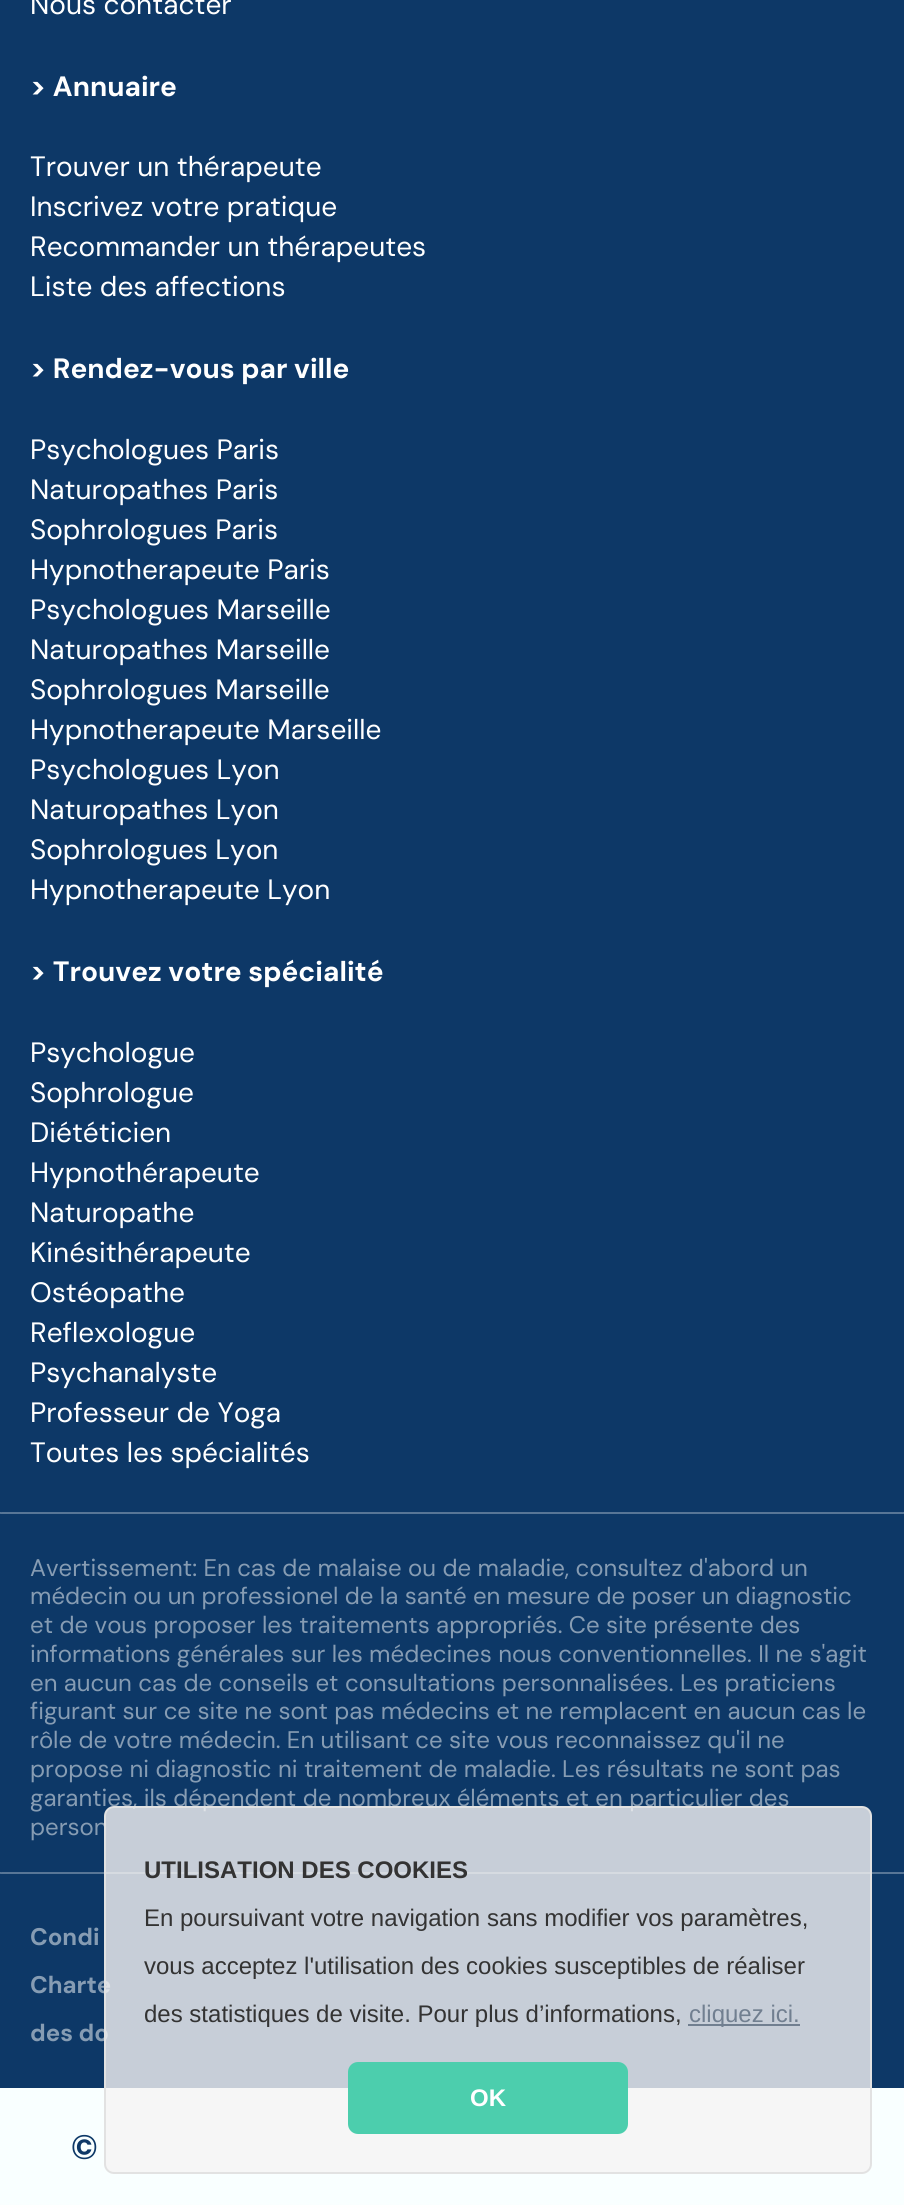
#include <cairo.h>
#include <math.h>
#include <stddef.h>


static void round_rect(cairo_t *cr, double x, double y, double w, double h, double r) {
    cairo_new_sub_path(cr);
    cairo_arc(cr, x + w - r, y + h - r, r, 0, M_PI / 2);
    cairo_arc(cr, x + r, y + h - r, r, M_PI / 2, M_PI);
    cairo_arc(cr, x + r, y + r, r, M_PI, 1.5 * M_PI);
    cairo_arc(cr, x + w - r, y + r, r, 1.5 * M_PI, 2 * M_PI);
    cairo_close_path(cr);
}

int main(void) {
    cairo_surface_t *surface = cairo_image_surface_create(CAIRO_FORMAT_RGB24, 904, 2205);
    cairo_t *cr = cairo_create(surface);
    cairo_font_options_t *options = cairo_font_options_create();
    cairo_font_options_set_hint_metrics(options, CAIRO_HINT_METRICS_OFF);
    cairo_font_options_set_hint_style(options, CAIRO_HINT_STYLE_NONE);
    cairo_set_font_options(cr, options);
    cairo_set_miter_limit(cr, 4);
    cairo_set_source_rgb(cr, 0.051, 0.22, 0.404);
    cairo_paint(cr);
    cairo_select_font_face(cr, "DM Sans", CAIRO_FONT_SLANT_NORMAL, CAIRO_FONT_WEIGHT_NORMAL);
    cairo_set_font_size(cr, 28);
    cairo_set_source_rgb(cr, 1, 1, 1);
    cairo_move_to(cr, 30, 14);
    cairo_show_text(cr, "Nous contacter");
    cairo_select_font_face(cr, "DM Sans", CAIRO_FONT_SLANT_NORMAL, CAIRO_FONT_WEIGHT_BOLD);
    cairo_move_to(cr, 30, 96);
    cairo_show_text(cr, "> Annuaire");
    cairo_select_font_face(cr, "DM Sans", CAIRO_FONT_SLANT_NORMAL, CAIRO_FONT_WEIGHT_NORMAL);
    cairo_move_to(cr, 30, 176);
    cairo_show_text(cr, "Trouver un thérapeute");
    cairo_move_to(cr, 30, 216);
    cairo_show_text(cr, "Inscrivez votre pratique");
    cairo_move_to(cr, 30, 256);
    cairo_show_text(cr, "Recommander un thérapeutes");
    cairo_move_to(cr, 30, 296);
    cairo_show_text(cr, "Liste des affections");
    cairo_select_font_face(cr, "DM Sans", CAIRO_FONT_SLANT_NORMAL, CAIRO_FONT_WEIGHT_BOLD);
    cairo_move_to(cr, 30, 378);
    cairo_show_text(cr, "> Rendez-vous par ville");
    cairo_select_font_face(cr, "DM Sans", CAIRO_FONT_SLANT_NORMAL, CAIRO_FONT_WEIGHT_NORMAL);
    cairo_move_to(cr, 30, 459);
    cairo_show_text(cr, "Psychologues Paris");
    cairo_move_to(cr, 30, 499);
    cairo_show_text(cr, "Naturopathes Paris");
    cairo_move_to(cr, 30, 539);
    cairo_show_text(cr, "Sophrologues Paris");
    cairo_move_to(cr, 30, 579);
    cairo_show_text(cr, "Hypnotherapeute Paris");
    cairo_move_to(cr, 30, 619);
    cairo_show_text(cr, "Psychologues Marseille");
    cairo_move_to(cr, 30, 659);
    cairo_show_text(cr, "Naturopathes Marseille");
    cairo_move_to(cr, 30, 699);
    cairo_show_text(cr, "Sophrologues Marseille");
    cairo_move_to(cr, 30, 739);
    cairo_show_text(cr, "Hypnotherapeute Marseille");
    cairo_move_to(cr, 30, 779);
    cairo_show_text(cr, "Psychologues Lyon");
    cairo_move_to(cr, 30, 819);
    cairo_show_text(cr, "Naturopathes Lyon");
    cairo_move_to(cr, 30, 859);
    cairo_show_text(cr, "Sophrologues Lyon");
    cairo_move_to(cr, 30, 899);
    cairo_show_text(cr, "Hypnotherapeute Lyon");
    cairo_select_font_face(cr, "DM Sans", CAIRO_FONT_SLANT_NORMAL, CAIRO_FONT_WEIGHT_BOLD);
    cairo_move_to(cr, 30, 981);
    cairo_show_text(cr, "> Trouvez votre spécialité");
    cairo_select_font_face(cr, "DM Sans", CAIRO_FONT_SLANT_NORMAL, CAIRO_FONT_WEIGHT_NORMAL);
    cairo_move_to(cr, 30, 1062);
    cairo_show_text(cr, "Psychologue");
    cairo_move_to(cr, 30, 1102);
    cairo_show_text(cr, "Sophrologue");
    cairo_move_to(cr, 30, 1142);
    cairo_show_text(cr, "Diététicien");
    cairo_move_to(cr, 30, 1182);
    cairo_show_text(cr, "Hypnothérapeute");
    cairo_move_to(cr, 30, 1222);
    cairo_show_text(cr, "Naturopathe");
    cairo_move_to(cr, 30, 1262);
    cairo_show_text(cr, "Kinésithérapeute");
    cairo_move_to(cr, 30, 1302);
    cairo_show_text(cr, "Ostéopathe");
    cairo_move_to(cr, 30, 1342);
    cairo_show_text(cr, "Reflexologue");
    cairo_move_to(cr, 30, 1382);
    cairo_show_text(cr, "Psychanalyste");
    cairo_move_to(cr, 30, 1422);
    cairo_show_text(cr, "Professeur de Yoga");
    cairo_move_to(cr, 30, 1462);
    cairo_show_text(cr, "Toutes les spécialités");
    cairo_set_source_rgb(cr, 0.349, 0.463, 0.592);
    cairo_new_path(cr);
    cairo_move_to(cr, 904, 1512);
    cairo_line_to(cr, 904, 1514);
    cairo_line_to(cr, 902, 1512);
    cairo_close_path(cr);
    cairo_fill(cr);
    cairo_set_source_rgba(cr, 1, 1, 1, 0.31);
    cairo_new_path(cr);
    cairo_move_to(cr, 904, 1514);
    cairo_line_to(cr, 0, 1514);
    cairo_line_to(cr, 2, 1512);
    cairo_line_to(cr, 902, 1512);
    cairo_close_path(cr);
    cairo_fill(cr);
    cairo_new_path(cr);
    cairo_move_to(cr, 0, 1514);
    cairo_line_to(cr, 0, 1512);
    cairo_line_to(cr, 2, 1512);
    cairo_close_path(cr);
    cairo_fill(cr);
    cairo_set_font_size(cr, 24);
    cairo_set_source_rgb(cr, 0.525, 0.612, 0.702);
    cairo_move_to(cr, 30, 1576);
    cairo_show_text(cr, "Avertissement: En cas de malaise ou de maladie, consultez d'abord un");
    cairo_move_to(cr, 30, 1604);
    cairo_show_text(cr, "médecin ou un professionel de la santé en mesure de poser un diagnostic");
    cairo_move_to(cr, 30, 1633);
    cairo_show_text(cr, "et de vous proposer les traitements appropriés. Ce site présente des");
    cairo_move_to(cr, 30, 1662);
    cairo_show_text(cr, "informations générales sur les médecines nous conventionnelles. Il ne s'agit");
    cairo_move_to(cr, 30, 1691);
    cairo_show_text(cr, "en aucun cas de conseils et consultations personnalisées. Les praticiens");
    cairo_move_to(cr, 30, 1719);
    cairo_show_text(cr, "figurant sur ce site ne sont pas médecins et ne remplacent en aucun cas le");
    cairo_move_to(cr, 30, 1748);
    cairo_show_text(cr, "rôle de votre médecin. En utilisant ce site vous reconnaissez qu'il ne");
    cairo_move_to(cr, 30, 1777);
    cairo_show_text(cr, "propose ni diagnostic ni traitement de maladie. Les résultats ne sont pas");
    cairo_move_to(cr, 30, 1806);
    cairo_show_text(cr, "garanties, ils dépendent de nombreux éléments et en particulier des");
    cairo_move_to(cr, 30, 1835);
    cairo_show_text(cr, "person");
    cairo_set_source_rgb(cr, 0.349, 0.463, 0.592);
    cairo_new_path(cr);
    cairo_move_to(cr, 904, 1872);
    cairo_line_to(cr, 904, 1874);
    cairo_line_to(cr, 902, 1872);
    cairo_close_path(cr);
    cairo_fill(cr);
    cairo_set_source_rgba(cr, 1, 1, 1, 0.31);
    cairo_new_path(cr);
    cairo_move_to(cr, 904, 1874);
    cairo_line_to(cr, 0, 1874);
    cairo_line_to(cr, 2, 1872);
    cairo_line_to(cr, 902, 1872);
    cairo_close_path(cr);
    cairo_fill(cr);
    cairo_new_path(cr);
    cairo_move_to(cr, 0, 1874);
    cairo_line_to(cr, 0, 1872);
    cairo_line_to(cr, 2, 1872);
    cairo_close_path(cr);
    cairo_fill(cr);
    cairo_select_font_face(cr, "DM Sans", CAIRO_FONT_SLANT_NORMAL, CAIRO_FONT_WEIGHT_BOLD);
    cairo_set_source_rgb(cr, 0.525, 0.612, 0.702);
    cairo_move_to(cr, 30, 1945);
    cairo_show_text(cr, "Condi");
    cairo_move_to(cr, 30, 1993);
    cairo_show_text(cr, "Charte");
    cairo_move_to(cr, 30, 2041);
    cairo_show_text(cr, "des do");
    cairo_set_source_rgb(cr, 0.973, 1, 1);
    cairo_rectangle(cr, 0, 2088, 904, 117);
    cairo_fill(cr);
    cairo_set_source_rgba(cr, 0.961, 0.957, 0.957, 0.8);
    round_rect(cr, 105, 1807, 766, 366, 9);
    cairo_fill_preserve(cr);
    cairo_set_source_rgb(cr, 0.886, 0.886, 0.886);
    cairo_stroke(cr);
    cairo_select_font_face(cr, "Liberation Sans", CAIRO_FONT_SLANT_NORMAL, CAIRO_FONT_WEIGHT_BOLD);
    cairo_set_source_rgb(cr, 0.2, 0.2, 0.2);
    cairo_move_to(cr, 144, 1878);
    cairo_show_text(cr, "UTILISATION DES COOKIES");
    cairo_select_font_face(cr, "Liberation Sans", CAIRO_FONT_SLANT_NORMAL, CAIRO_FONT_WEIGHT_NORMAL);
    cairo_move_to(cr, 144, 1926);
    cairo_show_text(cr, "En poursuivant votre navigation sans modifier vos paramètres,");
    cairo_move_to(cr, 144, 1974);
    cairo_show_text(cr, "vous acceptez l'utilisation des cookies susceptibles de réaliser");
    cairo_move_to(cr, 144, 2022);
    cairo_show_text(cr, "des statistiques de visite. Pour plus d’informations,");
    cairo_set_source_rgb(cr, 0.443, 0.498, 0.565);
    cairo_rectangle(cr, 688, 2024, 112, 2);
    cairo_fill(cr);
    cairo_move_to(cr, 689, 2022);
    cairo_show_text(cr, "cliquez ici.");
    cairo_set_source_rgb(cr, 0.298, 0.808, 0.678);
    round_rect(cr, 349, 2063, 278, 70, 9);
    cairo_fill_preserve(cr);
    cairo_stroke(cr);
    cairo_select_font_face(cr, "Liberation Sans", CAIRO_FONT_SLANT_NORMAL, CAIRO_FONT_WEIGHT_BOLD);
    cairo_set_source_rgb(cr, 1, 1, 1);
    cairo_move_to(cr, 470, 2106);
    cairo_show_text(cr, "OK");
    cairo_select_font_face(cr, "DM Sans", CAIRO_FONT_SLANT_NORMAL, CAIRO_FONT_WEIGHT_BOLD);
    cairo_set_font_size(cr, 34);
    cairo_set_source_rgb(cr, 0.051, 0.22, 0.404);
    cairo_move_to(cr, 71, 2159);
    cairo_show_text(cr, "©");
    cairo_surface_write_to_png(surface, "page.png");
    cairo_font_options_destroy(options);
    cairo_destroy(cr);
    cairo_surface_destroy(surface);
    return 0;
}
